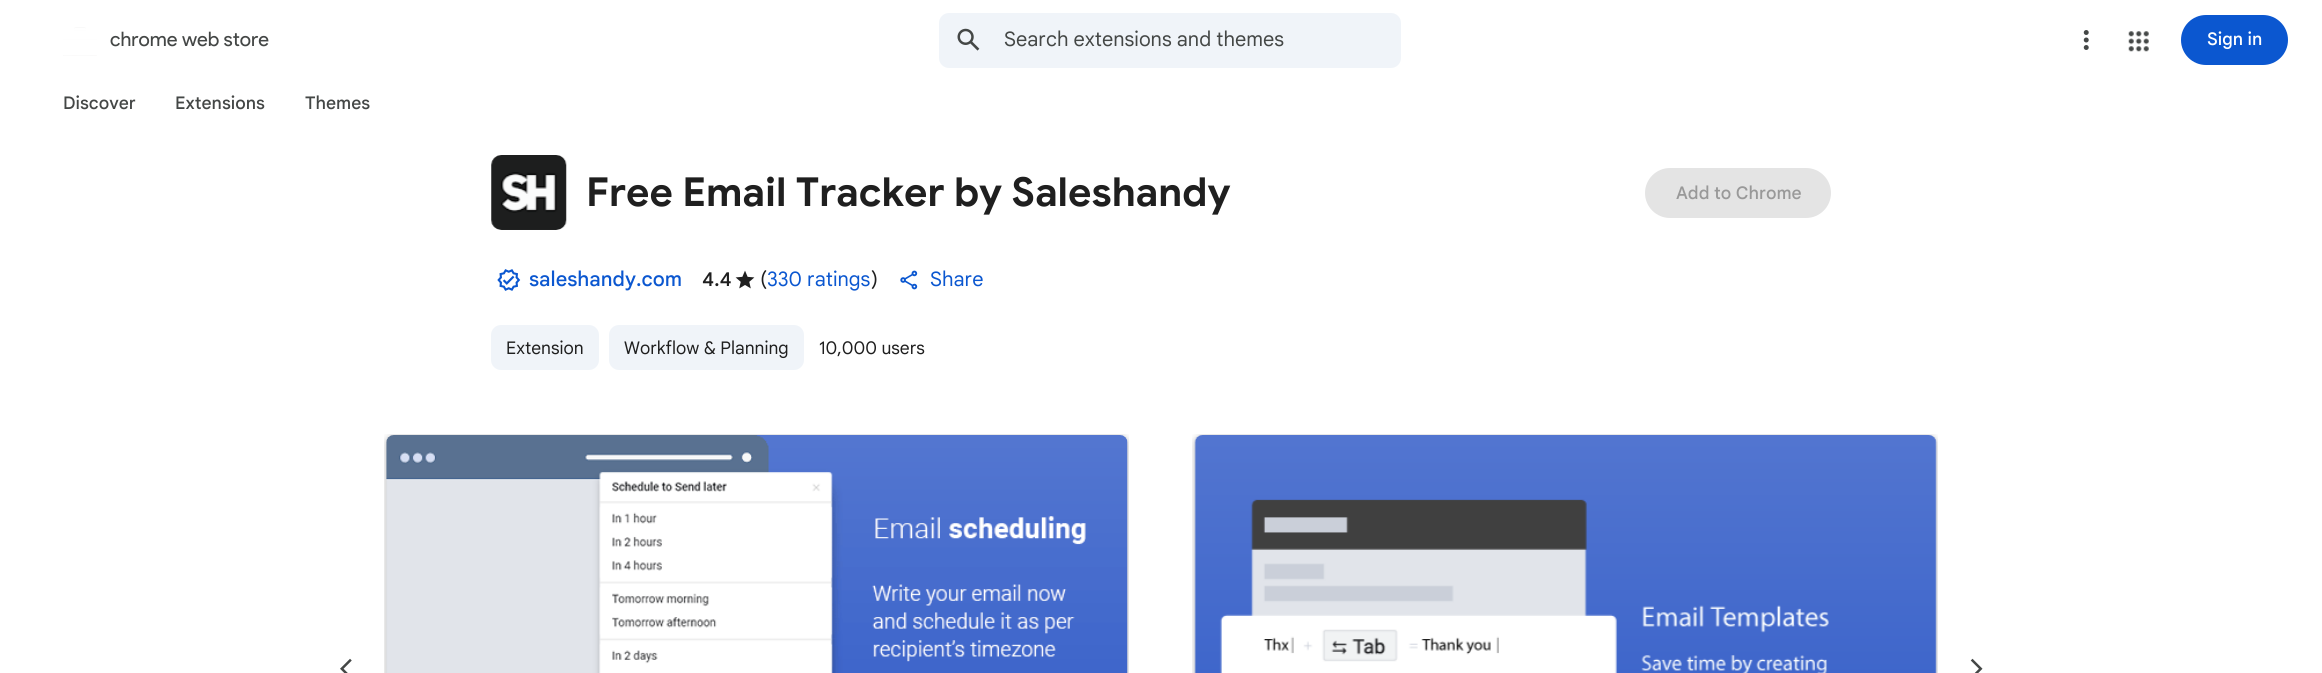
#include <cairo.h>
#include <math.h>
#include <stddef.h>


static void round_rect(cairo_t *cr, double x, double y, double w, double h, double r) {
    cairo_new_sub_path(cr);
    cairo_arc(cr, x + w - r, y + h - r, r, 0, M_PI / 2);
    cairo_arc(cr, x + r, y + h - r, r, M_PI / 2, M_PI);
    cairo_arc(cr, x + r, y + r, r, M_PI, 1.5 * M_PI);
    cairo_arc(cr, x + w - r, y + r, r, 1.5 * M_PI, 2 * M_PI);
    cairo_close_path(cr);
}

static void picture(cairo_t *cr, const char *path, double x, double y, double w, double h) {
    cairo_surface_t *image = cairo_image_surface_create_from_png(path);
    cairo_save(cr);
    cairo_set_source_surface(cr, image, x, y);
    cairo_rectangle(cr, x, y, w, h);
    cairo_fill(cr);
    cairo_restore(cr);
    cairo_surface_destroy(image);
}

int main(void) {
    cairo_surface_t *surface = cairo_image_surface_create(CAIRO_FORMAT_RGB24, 2322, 673);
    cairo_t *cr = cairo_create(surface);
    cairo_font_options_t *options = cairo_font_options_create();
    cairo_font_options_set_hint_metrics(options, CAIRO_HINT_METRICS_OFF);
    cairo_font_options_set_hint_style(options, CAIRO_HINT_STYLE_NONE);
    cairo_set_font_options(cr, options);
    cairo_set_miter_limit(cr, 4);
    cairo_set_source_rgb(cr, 1, 1, 1);
    cairo_paint(cr);
    picture(cr, "img1.png", 63, 27, 34, 29);
    cairo_select_font_face(cr, "Product Sans", CAIRO_FONT_SLANT_NORMAL, CAIRO_FONT_WEIGHT_NORMAL);
    cairo_set_font_size(cr, 20);
    cairo_set_source_rgb(cr, 0.267, 0.278, 0.275);
    cairo_move_to(cr, 110, 46);
    cairo_show_text(cr, "chrome web store");
    cairo_set_source_rgb(cr, 0.941, 0.957, 0.976);
    round_rect(cr, 939, 13, 462, 55, 10);
    cairo_fill(cr);
    picture(cr, "img2.png", 957, 28, 23, 23);
    cairo_select_font_face(cr, "Google Sans", CAIRO_FONT_SLANT_NORMAL, CAIRO_FONT_WEIGHT_NORMAL);
    cairo_set_source_rgb(cr, 0.267, 0.278, 0.275);
    cairo_move_to(cr, 1004, 46);
    cairo_show_text(cr, "Search extensions and themes");
    picture(cr, "img3.png", 2083, 30, 6, 20);
    picture(cr, "img4.png", 2128, 31, 21, 21);
    cairo_set_source_rgb(cr, 0.043, 0.341, 0.816);
    round_rect(cr, 2181, 15, 107, 50, 25);
    cairo_fill(cr);
    cairo_select_font_face(cr, "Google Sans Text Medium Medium", CAIRO_FONT_SLANT_NORMAL, CAIRO_FONT_WEIGHT_NORMAL);
    cairo_set_font_size(cr, 17.5);
    cairo_set_source_rgb(cr, 1, 1, 1);
    cairo_move_to(cr, 2207, 45);
    cairo_show_text(cr, "Sign in");
    cairo_set_source_rgb(cr, 0.267, 0.278, 0.275);
    cairo_move_to(cr, 63, 109);
    cairo_show_text(cr, "Discover");
    cairo_move_to(cr, 175, 109);
    cairo_show_text(cr, "Extensions");
    cairo_move_to(cr, 305, 109);
    cairo_show_text(cr, "Themes");
    picture(cr, "img5.png", 491, 155, 76, 75);
    cairo_select_font_face(cr, "Google Sans", CAIRO_FONT_SLANT_NORMAL, CAIRO_FONT_WEIGHT_BOLD);
    cairo_set_font_size(cr, 40);
    cairo_set_source_rgb(cr, 0.122, 0.122, 0.122);
    cairo_move_to(cr, 586, 206);
    cairo_show_text(cr, "Free Email Tracker by Saleshandy");
    cairo_set_source_rgb(cr, 0.894, 0.894, 0.894);
    round_rect(cr, 1645, 168, 186, 50, 25);
    cairo_fill(cr);
    cairo_select_font_face(cr, "Google Sans Text Medium Medium", CAIRO_FONT_SLANT_NORMAL, CAIRO_FONT_WEIGHT_NORMAL);
    cairo_set_font_size(cr, 17.5);
    cairo_set_source_rgb(cr, 0.6, 0.6, 0.6);
    cairo_move_to(cr, 1676, 199);
    cairo_show_text(cr, "Add to Chrome");
    picture(cr, "img6.png", 497, 269, 24, 22);
    cairo_select_font_face(cr, "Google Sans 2 Medium", CAIRO_FONT_SLANT_NORMAL, CAIRO_FONT_WEIGHT_NORMAL);
    cairo_set_font_size(cr, 20);
    cairo_set_source_rgb(cr, 0.043, 0.341, 0.816);
    cairo_move_to(cr, 529, 286);
    cairo_show_text(cr, "saleshandy.com");
    cairo_select_font_face(cr, "Google Sans Medium", CAIRO_FONT_SLANT_NORMAL, CAIRO_FONT_WEIGHT_NORMAL);
    cairo_set_source_rgb(cr, 0.122, 0.122, 0.122);
    cairo_move_to(cr, 702, 286);
    cairo_show_text(cr, "4.4");
    picture(cr, "img7.png", 735, 270, 20, 19);
    cairo_select_font_face(cr, "Google Sans", CAIRO_FONT_SLANT_NORMAL, CAIRO_FONT_WEIGHT_NORMAL);
    cairo_move_to(cr, 760, 286);
    cairo_show_text(cr, "(");
    cairo_set_source_rgb(cr, 0.043, 0.341, 0.816);
    cairo_move_to(cr, 767, 286);
    cairo_show_text(cr, "330 ratings");
    cairo_set_source_rgb(cr, 0.122, 0.122, 0.122);
    cairo_move_to(cr, 871, 286);
    cairo_show_text(cr, ")");
    picture(cr, "img8.png", 900, 270, 18, 20);
    cairo_select_font_face(cr, "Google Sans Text", CAIRO_FONT_SLANT_NORMAL, CAIRO_FONT_WEIGHT_NORMAL);
    cairo_set_source_rgb(cr, 0.043, 0.341, 0.816);
    cairo_move_to(cr, 930, 286);
    cairo_show_text(cr, "Share");
    cairo_set_source_rgb(cr, 0.941, 0.957, 0.976);
    round_rect(cr, 491, 325, 108, 45, 10);
    cairo_fill(cr);
    cairo_select_font_face(cr, "Google Sans", CAIRO_FONT_SLANT_NORMAL, CAIRO_FONT_WEIGHT_NORMAL);
    cairo_set_font_size(cr, 17.5);
    cairo_set_source_rgb(cr, 0.122, 0.122, 0.122);
    cairo_move_to(cr, 506, 354);
    cairo_show_text(cr, "Extension");
    cairo_set_source_rgb(cr, 0.941, 0.957, 0.976);
    round_rect(cr, 609, 325, 195, 45, 10);
    cairo_fill(cr);
    cairo_set_source_rgb(cr, 0.122, 0.122, 0.122);
    cairo_move_to(cr, 624, 354);
    cairo_show_text(cr, "Workflow & Planning");
    cairo_move_to(cr, 819, 354);
    cairo_show_text(cr, "10,000 users");
    picture(cr, "img9.png", 340, 658, 12, 15);
    picture(cr, "img10.png", 384, 434, 745, 239);
    picture(cr, "img11.png", 1192, 434, 746, 239);
    picture(cr, "img12.png", 1970, 658, 13, 15);
    cairo_surface_write_to_png(surface, "page.png");
    cairo_font_options_destroy(options);
    cairo_destroy(cr);
    cairo_surface_destroy(surface);
    return 0;
}
